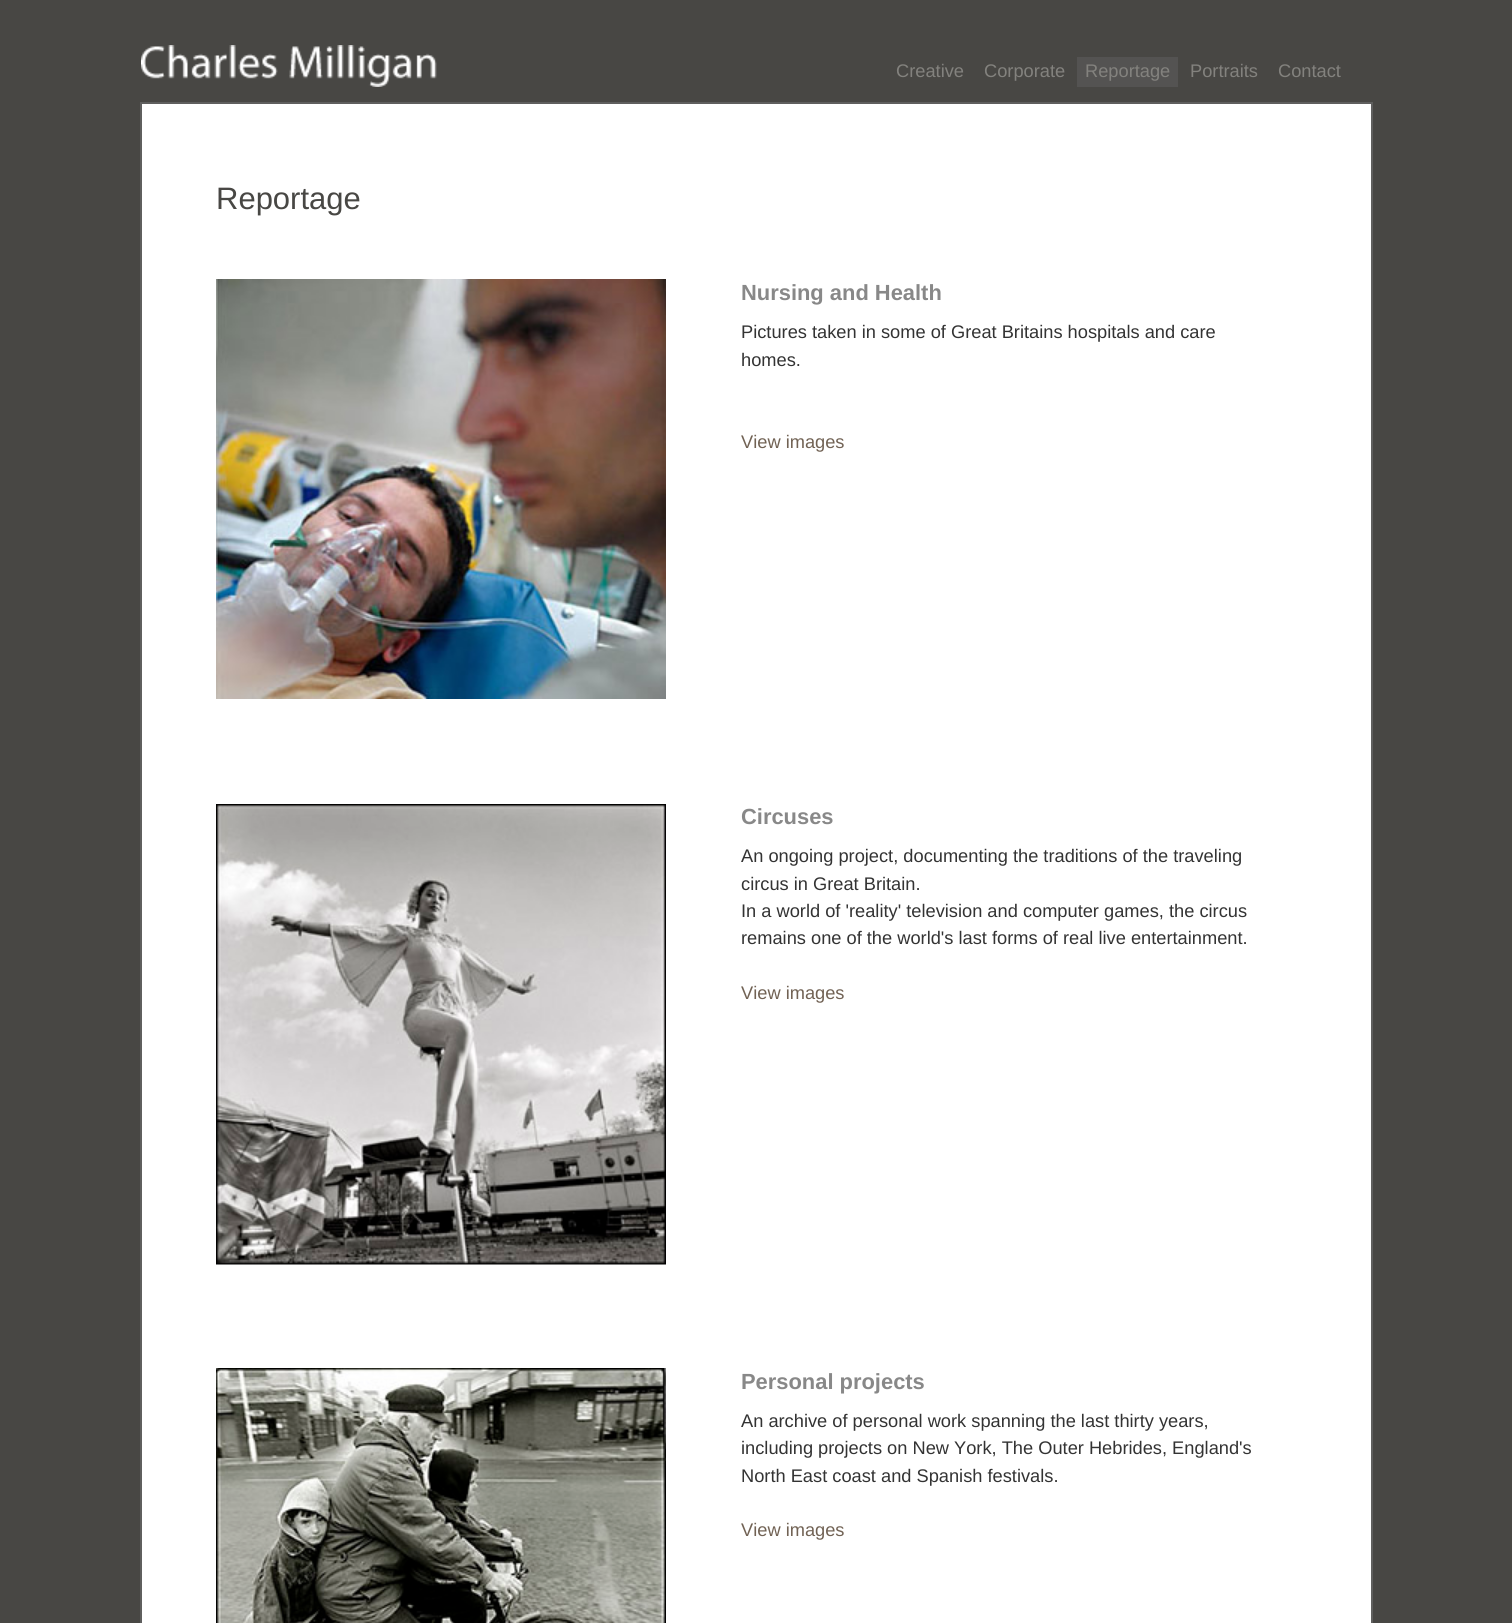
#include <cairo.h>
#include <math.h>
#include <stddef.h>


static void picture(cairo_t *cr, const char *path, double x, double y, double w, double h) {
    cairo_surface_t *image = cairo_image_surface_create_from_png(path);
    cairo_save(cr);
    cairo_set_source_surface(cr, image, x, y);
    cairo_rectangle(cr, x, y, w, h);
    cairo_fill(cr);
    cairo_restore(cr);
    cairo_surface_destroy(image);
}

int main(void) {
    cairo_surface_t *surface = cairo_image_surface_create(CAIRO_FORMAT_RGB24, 1512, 1623);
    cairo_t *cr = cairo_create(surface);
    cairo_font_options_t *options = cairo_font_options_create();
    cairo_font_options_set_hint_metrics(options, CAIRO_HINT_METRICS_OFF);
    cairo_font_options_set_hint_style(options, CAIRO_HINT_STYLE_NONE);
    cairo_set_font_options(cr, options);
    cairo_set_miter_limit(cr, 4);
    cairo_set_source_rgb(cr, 0.282, 0.278, 0.267);
    cairo_paint(cr);
    picture(cr, "img1.png", 141, 45, 296, 42);
    cairo_select_font_face(cr, "Liberation Sans", CAIRO_FONT_SLANT_NORMAL, CAIRO_FONT_WEIGHT_NORMAL);
    cairo_set_font_size(cr, 18.25);
    cairo_set_source_rgb(cr, 0.514, 0.51, 0.494);
    cairo_move_to(cr, 896, 77);
    cairo_show_text(cr, "Creative");
    cairo_move_to(cr, 984, 77);
    cairo_show_text(cr, "Corporate");
    cairo_set_source_rgb(cr, 0.329, 0.325, 0.322);
    cairo_rectangle(cr, 1077, 57, 101, 30);
    cairo_fill(cr);
    cairo_set_source_rgb(cr, 0.514, 0.51, 0.494);
    cairo_move_to(cr, 1085, 77);
    cairo_show_text(cr, "Reportage");
    cairo_move_to(cr, 1190, 77);
    cairo_show_text(cr, "Portraits");
    cairo_move_to(cr, 1278, 77);
    cairo_show_text(cr, "Contact");
    cairo_set_source_rgb(cr, 1, 1, 1);
    cairo_rectangle(cr, 141, 103, 1231, 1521);
    cairo_fill_preserve(cr);
    cairo_set_source_rgb(cr, 0.373, 0.373, 0.369);
    cairo_stroke(cr);
    cairo_set_font_size(cr, 31);
    cairo_set_source_rgb(cr, 0.282, 0.278, 0.267);
    cairo_move_to(cr, 216, 209);
    cairo_show_text(cr, "Reportage");
    picture(cr, "img2.png", 216, 279, 450, 420);
    cairo_select_font_face(cr, "Liberation Sans", CAIRO_FONT_SLANT_NORMAL, CAIRO_FONT_WEIGHT_BOLD);
    cairo_set_font_size(cr, 21.9);
    cairo_set_source_rgb(cr, 0.533, 0.533, 0.533);
    cairo_move_to(cr, 741, 300);
    cairo_show_text(cr, "Nursing and Health");
    cairo_select_font_face(cr, "Liberation Sans", CAIRO_FONT_SLANT_NORMAL, CAIRO_FONT_WEIGHT_NORMAL);
    cairo_set_font_size(cr, 18.25);
    cairo_set_source_rgb(cr, 0.2, 0.2, 0.2);
    cairo_move_to(cr, 741, 338);
    cairo_show_text(cr, "Pictures taken in some of Great Britains hospitals and care");
    cairo_move_to(cr, 741, 366);
    cairo_show_text(cr, "homes.");
    cairo_set_source_rgb(cr, 0.443, 0.384, 0.329);
    cairo_move_to(cr, 741, 448);
    cairo_show_text(cr, "View images");
    picture(cr, "img3.png", 216, 804, 450, 461);
    cairo_select_font_face(cr, "Liberation Sans", CAIRO_FONT_SLANT_NORMAL, CAIRO_FONT_WEIGHT_BOLD);
    cairo_set_font_size(cr, 21.9);
    cairo_set_source_rgb(cr, 0.533, 0.533, 0.533);
    cairo_move_to(cr, 741, 824);
    cairo_show_text(cr, "Circuses");
    cairo_select_font_face(cr, "Liberation Sans", CAIRO_FONT_SLANT_NORMAL, CAIRO_FONT_WEIGHT_NORMAL);
    cairo_set_font_size(cr, 18.25);
    cairo_set_source_rgb(cr, 0.2, 0.2, 0.2);
    cairo_move_to(cr, 741, 862);
    cairo_show_text(cr, "An ongoing project, documenting the traditions of the traveling");
    cairo_move_to(cr, 741, 890);
    cairo_show_text(cr, "circus in Great Britain.");
    cairo_move_to(cr, 741, 917);
    cairo_show_text(cr, "In a world of 'reality' television and computer games, the circus");
    cairo_move_to(cr, 741, 944);
    cairo_show_text(cr, "remains one of the world's last forms of real live entertainment.");
    cairo_set_source_rgb(cr, 0.443, 0.384, 0.329);
    cairo_move_to(cr, 741, 999);
    cairo_show_text(cr, "View images");
    picture(cr, "img4.png", 216, 1368, 450, 255);
    cairo_select_font_face(cr, "Liberation Sans", CAIRO_FONT_SLANT_NORMAL, CAIRO_FONT_WEIGHT_BOLD);
    cairo_set_font_size(cr, 21.9);
    cairo_set_source_rgb(cr, 0.533, 0.533, 0.533);
    cairo_move_to(cr, 741, 1389);
    cairo_show_text(cr, "Personal projects");
    cairo_select_font_face(cr, "Liberation Sans", CAIRO_FONT_SLANT_NORMAL, CAIRO_FONT_WEIGHT_NORMAL);
    cairo_set_font_size(cr, 18.25);
    cairo_set_source_rgb(cr, 0.2, 0.2, 0.2);
    cairo_move_to(cr, 741, 1427);
    cairo_show_text(cr, "An archive of personal work spanning the last thirty years,");
    cairo_move_to(cr, 741, 1454);
    cairo_show_text(cr, "including projects on New York, The Outer Hebrides, England's");
    cairo_move_to(cr, 741, 1482);
    cairo_show_text(cr, "North East coast and Spanish festivals.");
    cairo_set_source_rgb(cr, 0.443, 0.384, 0.329);
    cairo_move_to(cr, 741, 1536);
    cairo_show_text(cr, "View images");
    cairo_surface_write_to_png(surface, "page.png");
    cairo_font_options_destroy(options);
    cairo_destroy(cr);
    cairo_surface_destroy(surface);
    return 0;
}
